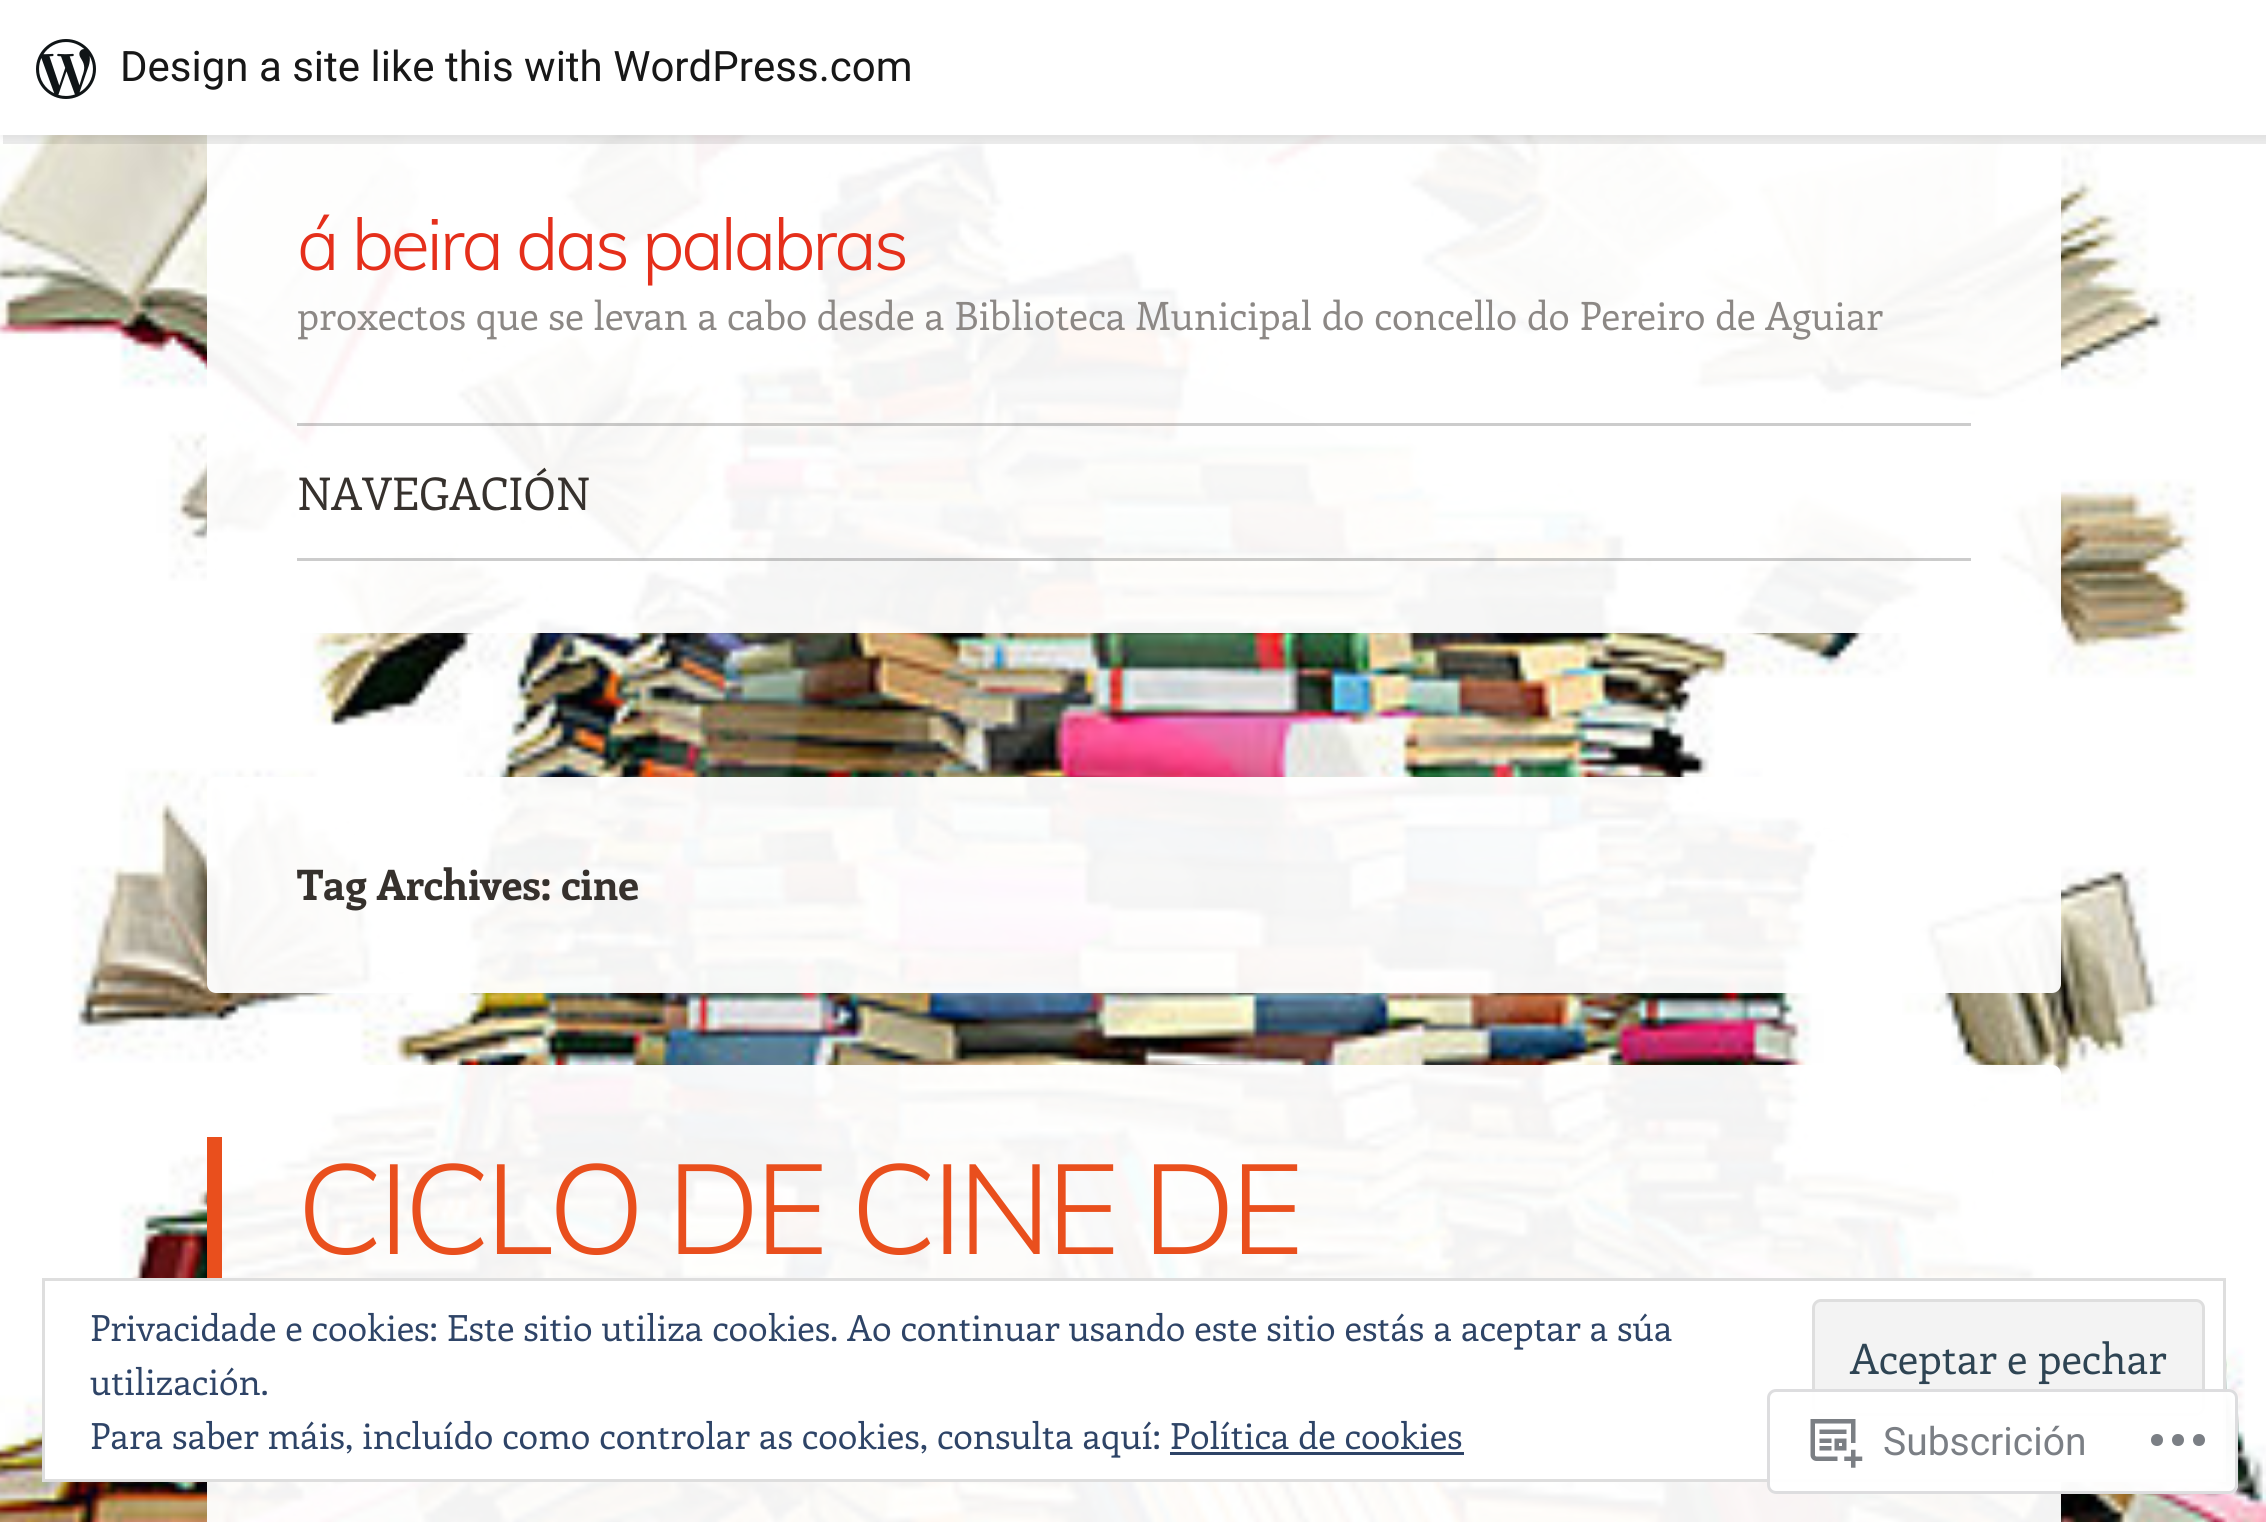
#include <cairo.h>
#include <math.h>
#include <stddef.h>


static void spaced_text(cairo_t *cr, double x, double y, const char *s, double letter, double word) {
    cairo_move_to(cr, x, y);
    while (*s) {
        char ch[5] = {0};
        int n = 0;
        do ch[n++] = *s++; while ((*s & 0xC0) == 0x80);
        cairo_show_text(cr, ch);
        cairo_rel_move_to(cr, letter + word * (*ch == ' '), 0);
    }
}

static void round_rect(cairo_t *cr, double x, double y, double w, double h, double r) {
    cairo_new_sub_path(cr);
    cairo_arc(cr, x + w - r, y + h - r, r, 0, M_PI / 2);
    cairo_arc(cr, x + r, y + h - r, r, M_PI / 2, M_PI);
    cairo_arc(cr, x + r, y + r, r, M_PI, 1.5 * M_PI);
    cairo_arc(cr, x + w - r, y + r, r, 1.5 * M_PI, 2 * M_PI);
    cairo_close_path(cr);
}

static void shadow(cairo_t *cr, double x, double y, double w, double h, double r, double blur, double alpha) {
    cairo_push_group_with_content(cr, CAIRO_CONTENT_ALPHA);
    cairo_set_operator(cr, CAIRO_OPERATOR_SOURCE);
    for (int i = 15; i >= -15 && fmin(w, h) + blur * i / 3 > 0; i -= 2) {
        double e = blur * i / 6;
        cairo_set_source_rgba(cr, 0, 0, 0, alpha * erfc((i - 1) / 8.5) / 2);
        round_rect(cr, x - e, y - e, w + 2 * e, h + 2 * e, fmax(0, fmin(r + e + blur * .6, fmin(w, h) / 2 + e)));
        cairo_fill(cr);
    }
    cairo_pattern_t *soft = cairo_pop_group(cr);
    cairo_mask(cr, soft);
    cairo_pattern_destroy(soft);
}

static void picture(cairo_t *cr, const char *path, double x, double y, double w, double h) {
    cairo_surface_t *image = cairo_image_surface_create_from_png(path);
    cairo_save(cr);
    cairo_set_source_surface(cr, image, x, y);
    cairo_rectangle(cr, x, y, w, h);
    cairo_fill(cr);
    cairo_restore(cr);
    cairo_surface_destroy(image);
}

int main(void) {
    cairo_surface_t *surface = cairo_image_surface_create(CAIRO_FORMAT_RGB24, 2266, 1522);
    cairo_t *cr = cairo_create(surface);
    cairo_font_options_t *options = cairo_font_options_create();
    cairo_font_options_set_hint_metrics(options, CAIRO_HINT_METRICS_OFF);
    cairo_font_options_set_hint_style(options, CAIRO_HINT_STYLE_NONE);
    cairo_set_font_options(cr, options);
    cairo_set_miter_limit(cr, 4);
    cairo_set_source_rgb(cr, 1, 1, 1);
    cairo_paint(cr);
    picture(cr, "img1.png", 0, 135, 2266, 1387);
    cairo_set_source_rgba(cr, 1, 1, 1, 0.95);
    cairo_new_path(cr);
    cairo_move_to(cr, 207, 135);
    cairo_line_to(cr, 2061, 135);
    cairo_line_to(cr, 2061, 624);
    cairo_curve_to(cr, 2061, 629, 2057, 633, 2052, 633);
    cairo_line_to(cr, 216, 633);
    cairo_curve_to(cr, 211, 633, 207, 629, 207, 624);
    cairo_close_path(cr);
    cairo_fill(cr);
    cairo_set_source_rgb(cr, 0, 0, 0);
    shadow(cr, 0, 3, 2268, 135, 0, 3, 0.05);
    cairo_set_source_rgba(cr, 0, 0, 0, 0.08);
    cairo_new_path(cr);
    cairo_move_to(cr, 3, 135);
    cairo_line_to(cr, 3, 144);
    cairo_line_to(cr, 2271, 144);
    cairo_line_to(cr, 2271, 9);
    cairo_line_to(cr, 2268, 9);
    cairo_line_to(cr, 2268, 135);
    cairo_close_path(cr);
    cairo_fill(cr);
    cairo_set_source_rgb(cr, 1, 1, 1);
    cairo_rectangle(cr, 0, 0, 2266, 135);
    cairo_fill(cr);
    picture(cr, "img2.png", 36, 39, 60, 60);
    cairo_select_font_face(cr, "Roboto", CAIRO_FONT_SLANT_NORMAL, CAIRO_FONT_WEIGHT_NORMAL);
    cairo_set_font_size(cr, 42);
    cairo_set_source_rgb(cr, 0.09, 0.09, 0.09);
    cairo_move_to(cr, 120, 81);
    cairo_show_text(cr, "Design a site like this with WordPress.com");
    cairo_select_font_face(cr, "Muli Light", CAIRO_FONT_SLANT_NORMAL, CAIRO_FONT_WEIGHT_NORMAL);
    cairo_set_font_size(cr, 72);
    cairo_set_source_rgb(cr, 0.898, 0.184, 0.106);
    spaced_text(cr, 297, 270, "á beira das palabras", -3.25, 0);
    cairo_select_font_face(cr, "Enriqueta", CAIRO_FONT_SLANT_NORMAL, CAIRO_FONT_WEIGHT_NORMAL);
    cairo_set_font_size(cr, 39);
    cairo_set_source_rgb(cr, 0.549, 0.533, 0.522);
    cairo_move_to(cr, 297, 330);
    cairo_show_text(cr, "proxectos que se levan a cabo desde a Biblioteca Municipal do concello do Pereiro de Aguiar");
    cairo_set_source_rgba(cr, 0, 0, 0, 0.2);
    cairo_rectangle(cr, 297, 423, 1674, 3);
    cairo_fill(cr);
    cairo_rectangle(cr, 297, 558, 1674, 3);
    cairo_fill(cr);
    cairo_set_font_size(cr, 45);
    cairo_set_source_rgb(cr, 0.212, 0.192, 0.176);
    cairo_move_to(cr, 297, 510);
    cairo_show_text(cr, "NAVEGACIÓN");
    cairo_set_source_rgba(cr, 1, 1, 1, 0.95);
    round_rect(cr, 207, 777, 1854, 216, 9);
    cairo_fill(cr);
    cairo_select_font_face(cr, "Enriqueta", CAIRO_FONT_SLANT_NORMAL, CAIRO_FONT_WEIGHT_BOLD);
    cairo_set_font_size(cr, 42);
    cairo_set_source_rgb(cr, 0.212, 0.192, 0.176);
    cairo_move_to(cr, 297, 900);
    cairo_show_text(cr, "Tag Archives: cine");
    cairo_set_source_rgba(cr, 1, 1, 1, 0.95);
    round_rect(cr, 207, 1065, 1854, 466, 9);
    cairo_fill(cr);
    cairo_set_source_rgb(cr, 0.914, 0.31, 0.114);
    cairo_rectangle(cr, 207, 1137, 15, 141);
    cairo_fill(cr);
    cairo_select_font_face(cr, "Muli Light", CAIRO_FONT_SLANT_NORMAL, CAIRO_FONT_WEIGHT_NORMAL);
    cairo_set_font_size(cr, 126);
    spaced_text(cr, 297, 1254, "CICLO DE CINE DE", -5, 0);
    cairo_set_source_rgb(cr, 1, 1, 1);
    cairo_rectangle(cr, 43.5, 1279.5, 2181, 201);
    cairo_fill_preserve(cr);
    cairo_set_source_rgb(cr, 0.871, 0.871, 0.871);
    cairo_set_line_width(cr, 3);
    cairo_stroke(cr);
    cairo_select_font_face(cr, "Enriqueta", CAIRO_FONT_SLANT_NORMAL, CAIRO_FONT_WEIGHT_NORMAL);
    cairo_set_font_size(cr, 36);
    cairo_set_source_rgb(cr, 0.18, 0.267, 0.404);
    cairo_move_to(cr, 90, 1341);
    cairo_show_text(cr, "Privacidade e cookies: Este sitio utiliza cookies. Ao continuar usando este sitio estás a aceptar a súa");
    cairo_move_to(cr, 90, 1395);
    cairo_show_text(cr, "utilización.");
    cairo_set_source_rgb(cr, 0.953, 0.953, 0.953);
    round_rect(cr, 1813.5, 1300.5, 390, 114, 7.5);
    cairo_fill_preserve(cr);
    cairo_set_source_rgb(cr, 0.871, 0.871, 0.871);
    cairo_stroke(cr);
    cairo_set_font_size(cr, 42);
    cairo_set_source_rgb(cr, 0.18, 0.267, 0.325);
    cairo_move_to(cr, 1850, 1374);
    cairo_show_text(cr, "Aceptar e pechar");
    cairo_set_font_size(cr, 36);
    cairo_set_source_rgb(cr, 0.18, 0.267, 0.404);
    cairo_move_to(cr, 90, 1449);
    cairo_show_text(cr, "Para saber máis, incluído como controlar as cookies, consulta aquí: Política de cookies");
    cairo_rectangle(cr, 1170, 1452, 294, 3);
    cairo_fill(cr);
    cairo_set_source_rgba(cr, 1, 1, 1, 0.98);
    round_rect(cr, 1767, 1389, 471, 105, 9);
    cairo_fill(cr);
    round_rect(cr, 1768.5, 1390.5, 468, 102, 7.5);
    cairo_set_source_rgba(cr, 0.863, 0.863, 0.871, 0.98);
    cairo_stroke(cr);
    picture(cr, "img3.png", 1810, 1419, 53, 49);
    cairo_select_font_face(cr, "Roboto", CAIRO_FONT_SLANT_NORMAL, CAIRO_FONT_WEIGHT_NORMAL);
    cairo_set_font_size(cr, 39);
    cairo_set_source_rgb(cr, 0.482, 0.498, 0.522);
    cairo_move_to(cr, 1883, 1455);
    cairo_show_text(cr, "Subscrición");
    cairo_new_path(cr);
    cairo_move_to(cr, 2163, 1440);
    cairo_curve_to(cr, 2163, 1448, 2151, 1448, 2151, 1440);
    cairo_curve_to(cr, 2151, 1432, 2163, 1432, 2163, 1440);
    cairo_close_path(cr);
    cairo_move_to(cr, 2199, 1434);
    cairo_curve_to(cr, 2191, 1434, 2191, 1446, 2199, 1446);
    cairo_curve_to(cr, 2207, 1446, 2207, 1434, 2199, 1434);
    cairo_close_path(cr);
    cairo_move_to(cr, 2178, 1434);
    cairo_curve_to(cr, 2170, 1434, 2170, 1446, 2178, 1446);
    cairo_curve_to(cr, 2186, 1446, 2186, 1434, 2178, 1434);
    cairo_close_path(cr);
    cairo_fill(cr);
    cairo_surface_write_to_png(surface, "page.png");
    cairo_font_options_destroy(options);
    cairo_destroy(cr);
    cairo_surface_destroy(surface);
    return 0;
}
